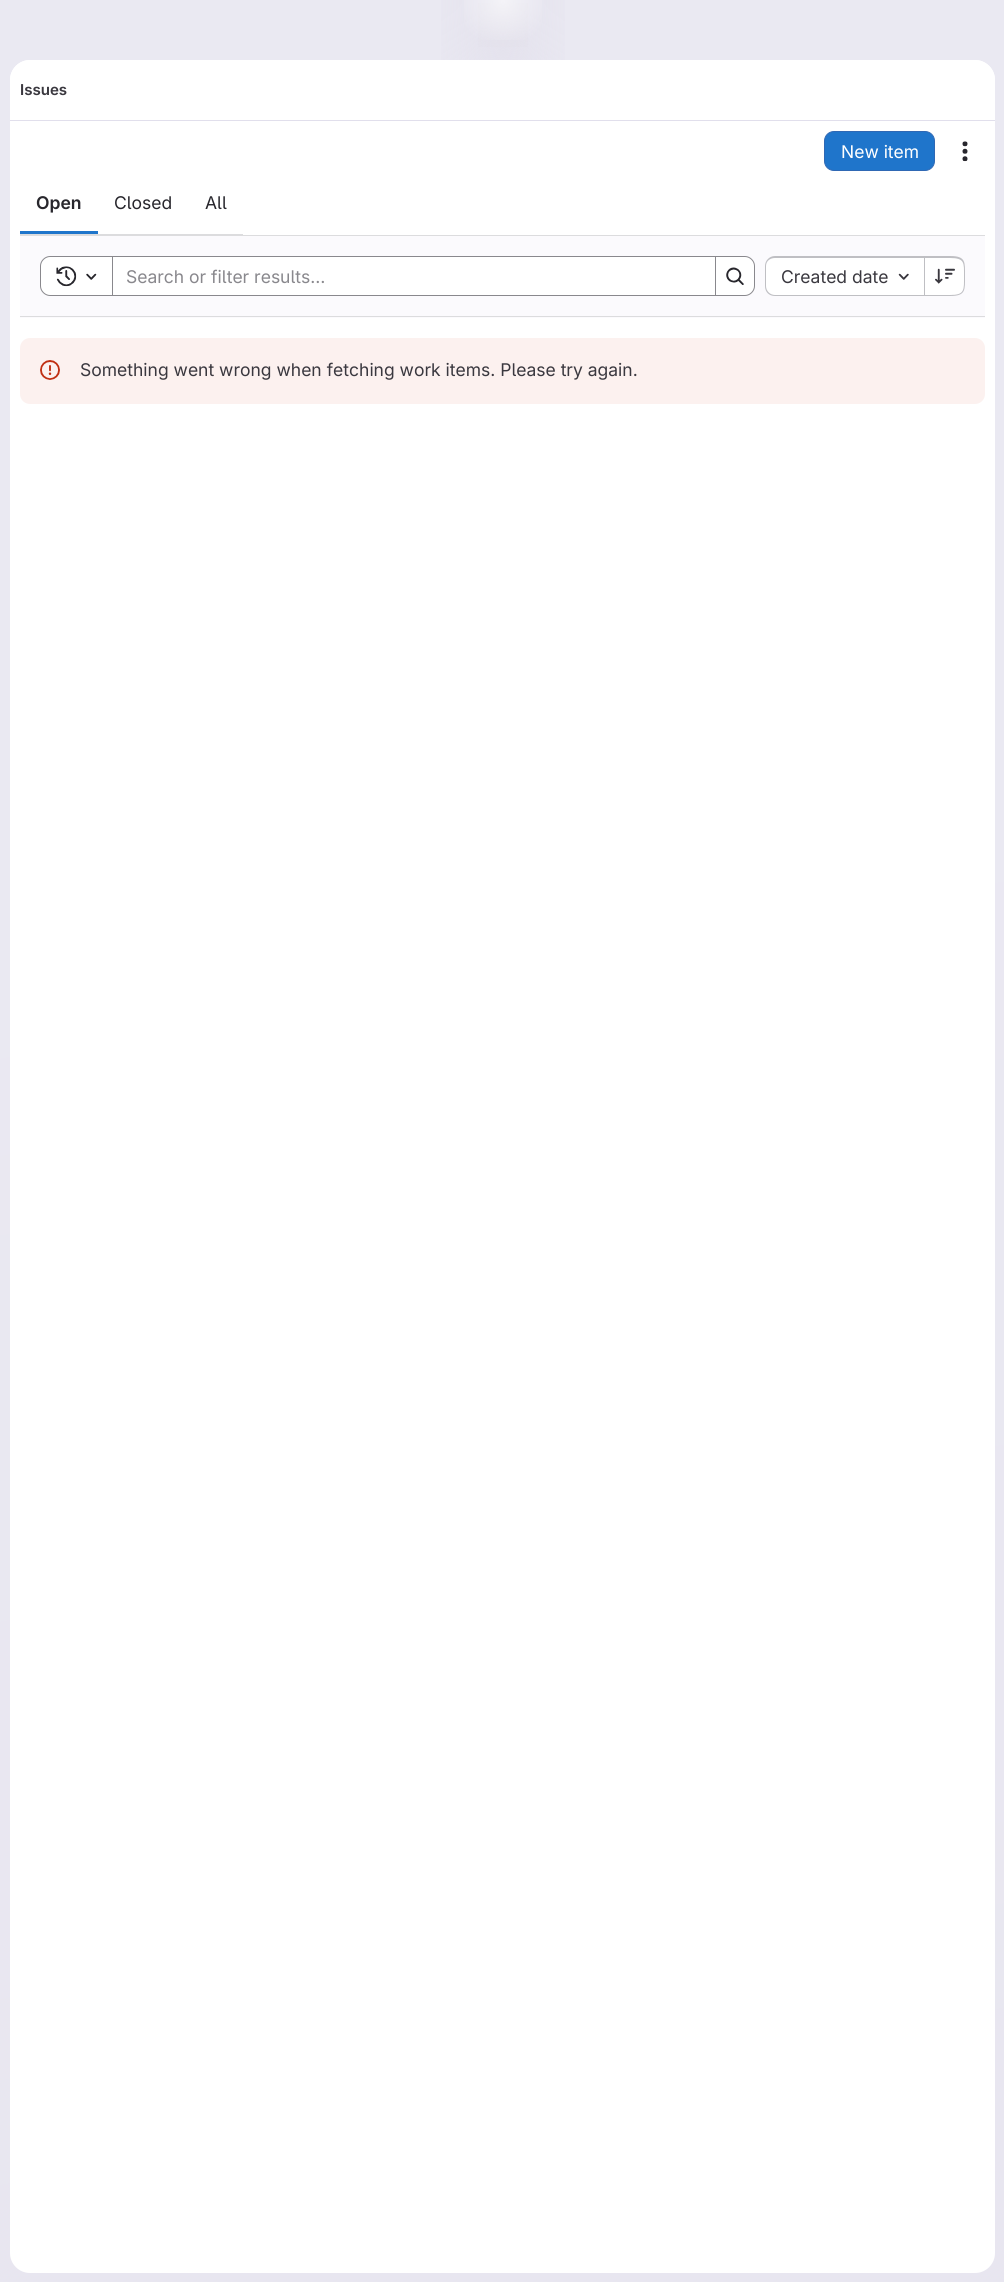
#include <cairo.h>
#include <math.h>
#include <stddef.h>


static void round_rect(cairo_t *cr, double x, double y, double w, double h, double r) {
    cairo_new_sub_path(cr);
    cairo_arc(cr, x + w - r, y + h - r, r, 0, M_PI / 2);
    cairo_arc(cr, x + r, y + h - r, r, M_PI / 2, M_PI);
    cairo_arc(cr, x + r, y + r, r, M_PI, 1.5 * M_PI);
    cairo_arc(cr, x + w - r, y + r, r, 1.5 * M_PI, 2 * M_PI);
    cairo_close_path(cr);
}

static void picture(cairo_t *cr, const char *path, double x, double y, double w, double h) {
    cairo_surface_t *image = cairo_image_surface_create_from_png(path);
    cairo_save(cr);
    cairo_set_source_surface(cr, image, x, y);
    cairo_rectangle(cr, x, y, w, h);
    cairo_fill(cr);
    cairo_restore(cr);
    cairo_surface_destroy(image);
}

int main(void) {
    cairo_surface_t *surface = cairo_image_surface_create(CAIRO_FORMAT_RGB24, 1004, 2282);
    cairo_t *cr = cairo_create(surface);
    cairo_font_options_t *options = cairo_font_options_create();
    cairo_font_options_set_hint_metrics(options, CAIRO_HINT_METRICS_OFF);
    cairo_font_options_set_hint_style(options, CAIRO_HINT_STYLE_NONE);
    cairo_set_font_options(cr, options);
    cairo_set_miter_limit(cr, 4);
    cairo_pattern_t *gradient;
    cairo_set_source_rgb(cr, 1, 1, 1);
    cairo_paint(cr);
    gradient = cairo_pattern_create_linear(713, 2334, 292, -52);
    cairo_pattern_add_color_stop_rgba(gradient, 0, 0.91, 0.902, 0.941, 1);
    cairo_pattern_add_color_stop_rgba(gradient, 0.7, 0.918, 0.914, 0.949, 1);
    cairo_set_source(cr, gradient);
    cairo_pattern_destroy(gradient);
    cairo_rectangle(cr, 0, 0, 1004, 2282);
    cairo_fill(cr);
    gradient = cairo_pattern_create_radial(0, 0, 0, 0, 0, 1);
    cairo_pattern_set_matrix(gradient, &(cairo_matrix_t){1.0 / 503, 0, 0, 1.0 / 2283, -1.0 * 503 / 503, -1.0 * 0 / 2283});
    cairo_pattern_add_color_stop_rgba(gradient, 0, 0.894, 0.886, 0.929, 1);
    cairo_pattern_add_color_stop_rgba(gradient, 0.17, 0.894, 0.886, 0.929, 0);
    cairo_set_source(cr, gradient);
    cairo_pattern_destroy(gradient);
    cairo_rectangle(cr, 441, 0, 124, 60);
    cairo_fill(cr);
    gradient = cairo_pattern_create_radial(0, 0, 0, 0, 0, 1);
    cairo_pattern_set_matrix(gradient, &(cairo_matrix_t){1.0 / 503, 0, 0, 1.0 / 2283, -1.0 * 503 / 503, -1.0 * 0 / 2283});
    cairo_pattern_add_color_stop_rgba(gradient, 0, 0.894, 0.886, 0.925, 1);
    cairo_pattern_add_color_stop_rgba(gradient, 0.12, 0.894, 0.886, 0.925, 0);
    cairo_set_source(cr, gradient);
    cairo_pattern_destroy(gradient);
    cairo_rectangle(cr, 478, 3, 50, 44);
    cairo_fill(cr);
    gradient = cairo_pattern_create_radial(503, 0, 0, 503, 0, 2337);
    cairo_pattern_add_color_stop_rgba(gradient, 0, 1, 1, 1, 0.6);
    cairo_pattern_add_color_stop_rgba(gradient, 0.02, 1, 1, 1, 0);
    cairo_set_source(cr, gradient);
    cairo_pattern_destroy(gradient);
    cairo_rectangle(cr, 464, 0, 78, 40);
    cairo_fill(cr);
    cairo_set_source_rgb(cr, 1, 1, 1);
    round_rect(cr, 10, 60, 985, 2213, 20);
    cairo_fill(cr);
    cairo_new_path(cr);
    cairo_move_to(cr, 30, 60);
    cairo_line_to(cr, 975, 60);
    cairo_curve_to(cr, 986, 60, 995, 69, 995, 80);
    cairo_line_to(cr, 995, 121);
    cairo_line_to(cr, 10, 121);
    cairo_line_to(cr, 10, 80);
    cairo_curve_to(cr, 10, 69, 19, 60, 30, 60);
    cairo_close_path(cr);
    cairo_fill(cr);
    cairo_set_source_rgb(cr, 0.882, 0.875, 0.925);
    cairo_rectangle(cr, 10, 120, 985, 1);
    cairo_fill(cr);
    cairo_select_font_face(cr, "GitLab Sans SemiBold", CAIRO_FONT_SLANT_NORMAL, CAIRO_FONT_WEIGHT_NORMAL);
    cairo_set_font_size(cr, 15);
    cairo_set_source_rgb(cr, 0.227, 0.22, 0.247);
    cairo_move_to(cr, 20, 95);
    cairo_show_text(cr, "Issues");
    cairo_set_source_rgb(cr, 0.863, 0.863, 0.871);
    cairo_rectangle(cr, 20, 235, 965, 1);
    cairo_fill(cr);
    cairo_set_source_rgb(cr, 0.122, 0.459, 0.796);
    round_rect(cr, 824.5, 131.5, 110, 39, 9.5);
    cairo_fill_preserve(cr);
    cairo_set_source_rgb(cr, 0.184, 0.408, 0.706);
    cairo_set_line_width(cr, 1);
    cairo_stroke(cr);
    cairo_select_font_face(cr, "GitLab Sans", CAIRO_FONT_SLANT_NORMAL, CAIRO_FONT_WEIGHT_NORMAL);
    cairo_set_font_size(cr, 17.5);
    cairo_set_source_rgb(cr, 1, 1, 1);
    cairo_move_to(cr, 841, 158);
    cairo_show_text(cr, "New item");
    picture(cr, "img1.png", 962, 141, 6, 21);
    cairo_set_source_rgb(cr, 0.863, 0.863, 0.871);
    cairo_rectangle(cr, 20, 234, 223, 1);
    cairo_fill(cr);
    cairo_select_font_face(cr, "GitLab Sans SemiBold", CAIRO_FONT_SLANT_NORMAL, CAIRO_FONT_WEIGHT_NORMAL);
    cairo_set_source_rgb(cr, 0.157, 0.153, 0.176);
    cairo_move_to(cr, 36, 209);
    cairo_show_text(cr, "Open");
    cairo_set_source_rgb(cr, 0.122, 0.459, 0.796);
    cairo_rectangle(cr, 20, 231, 78, 3);
    cairo_fill(cr);
    cairo_select_font_face(cr, "GitLab Sans", CAIRO_FONT_SLANT_NORMAL, CAIRO_FONT_WEIGHT_NORMAL);
    cairo_set_source_rgb(cr, 0.157, 0.153, 0.176);
    cairo_move_to(cr, 114, 209);
    cairo_show_text(cr, "Closed");
    cairo_move_to(cr, 205, 209);
    cairo_show_text(cr, "All");
    cairo_set_source_rgb(cr, 0.984, 0.98, 0.992);
    cairo_rectangle(cr, 20, 236, 965, 82);
    cairo_fill(cr);
    cairo_set_source_rgb(cr, 0.863, 0.863, 0.871);
    cairo_rectangle(cr, 20, 316, 965, 1);
    cairo_fill(cr);
    cairo_set_source_rgb(cr, 1, 1, 1);
    cairo_rectangle(cr, 113, 257, 602, 38);
    cairo_fill(cr);
    cairo_rectangle(cr, 111.5, 256.5, 604, 39);
    cairo_set_source_rgb(cr, 0.537, 0.533, 0.553);
    cairo_stroke(cr);
    cairo_set_source_rgb(cr, 1, 1, 1);
    cairo_new_path(cr);
    cairo_move_to(cr, 50, 256.5);
    cairo_line_to(cr, 112.5, 256.5);
    cairo_line_to(cr, 112.5, 295.5);
    cairo_line_to(cr, 50, 295.5);
    cairo_curve_to(cr, 45, 295.5, 40.5, 291, 40.5, 286);
    cairo_line_to(cr, 40.5, 266);
    cairo_curve_to(cr, 40.5, 261, 45, 256.5, 50, 256.5);
    cairo_close_path(cr);
    cairo_fill_preserve(cr);
    cairo_set_source_rgb(cr, 0.537, 0.533, 0.553);
    cairo_stroke(cr);
    picture(cr, "img2.png", 56, 266, 21, 21);
    picture(cr, "img3.png", 86, 273, 11, 7);
    cairo_move_to(cr, 126, 283);
    cairo_show_text(cr, "Search or filter results…");
    cairo_set_source_rgb(cr, 1, 1, 1);
    cairo_new_path(cr);
    cairo_move_to(cr, 715.5, 256.5);
    cairo_line_to(cr, 745, 256.5);
    cairo_curve_to(cr, 750, 256.5, 754.5, 261, 754.5, 266);
    cairo_line_to(cr, 754.5, 286);
    cairo_curve_to(cr, 754.5, 291, 750, 295.5, 745, 295.5);
    cairo_line_to(cr, 715.5, 295.5);
    cairo_close_path(cr);
    cairo_fill_preserve(cr);
    cairo_set_source_rgb(cr, 0.537, 0.533, 0.553);
    cairo_stroke(cr);
    picture(cr, "img4.png", 726, 267, 18, 18);
    cairo_set_source_rgb(cr, 1, 1, 1);
    cairo_new_path(cr);
    cairo_move_to(cr, 775, 258);
    cairo_line_to(cr, 924, 258);
    cairo_line_to(cr, 924, 295);
    cairo_line_to(cr, 775, 295);
    cairo_curve_to(cr, 770, 295, 766, 291, 766, 286);
    cairo_line_to(cr, 766, 267);
    cairo_curve_to(cr, 766, 262, 770, 258, 775, 258);
    cairo_close_path(cr);
    cairo_fill(cr);
    cairo_set_source_rgb(cr, 0.749, 0.749, 0.765);
    cairo_set_fill_rule(cr, CAIRO_FILL_RULE_EVEN_ODD);
    cairo_new_path(cr);
    cairo_move_to(cr, 775, 256);
    cairo_line_to(cr, 924, 256);
    cairo_line_to(cr, 924, 296);
    cairo_line_to(cr, 775, 296);
    cairo_curve_to(cr, 769, 296, 765, 292, 765, 286);
    cairo_line_to(cr, 765, 266);
    cairo_curve_to(cr, 765, 261, 769, 256, 775, 256);
    cairo_close_path(cr);
    cairo_move_to(cr, 775, 258);
    cairo_line_to(cr, 924, 258);
    cairo_line_to(cr, 924, 295);
    cairo_line_to(cr, 775, 295);
    cairo_curve_to(cr, 770, 295, 766, 291, 766, 286);
    cairo_line_to(cr, 766, 266);
    cairo_curve_to(cr, 766, 261, 770, 258, 775, 258);
    cairo_close_path(cr);
    cairo_fill(cr);
    cairo_set_source_rgb(cr, 0.227, 0.22, 0.247);
    cairo_move_to(cr, 781, 283);
    cairo_show_text(cr, "Created date");
    picture(cr, "img5.png", 898, 273, 11, 7);
    cairo_set_source_rgb(cr, 1, 1, 1);
    cairo_new_path(cr);
    cairo_move_to(cr, 925, 258);
    cairo_line_to(cr, 955, 258);
    cairo_curve_to(cr, 960, 258, 964, 262, 964, 267);
    cairo_line_to(cr, 964, 286);
    cairo_curve_to(cr, 964, 291, 960, 295, 955, 295);
    cairo_line_to(cr, 925, 295);
    cairo_close_path(cr);
    cairo_fill(cr);
    cairo_set_source_rgb(cr, 0.749, 0.749, 0.765);
    cairo_new_path(cr);
    cairo_move_to(cr, 925, 256);
    cairo_line_to(cr, 950, 256);
    cairo_curve_to(cr, 966, 256, 965, 262, 965, 276);
    cairo_curve_to(cr, 965, 290, 966, 296, 950, 296);
    cairo_line_to(cr, 925, 296);
    cairo_close_path(cr);
    cairo_move_to(cr, 925, 258);
    cairo_line_to(cr, 950, 258);
    cairo_curve_to(cr, 965, 258, 964, 263, 964, 276);
    cairo_curve_to(cr, 964, 290, 965, 295, 950, 295);
    cairo_line_to(cr, 925, 295);
    cairo_close_path(cr);
    cairo_fill(cr);
    cairo_rectangle(cr, 924, 256, 1, 40);
    cairo_fill(cr);
    picture(cr, "img6.png", 935, 268, 20, 16);
    cairo_set_source_rgb(cr, 0.988, 0.945, 0.937);
    round_rect(cr, 20, 338, 965, 66, 10);
    cairo_fill(cr);
    picture(cr, "img7.png", 40, 360, 20, 20);
    cairo_set_source_rgb(cr, 0.227, 0.22, 0.247);
    cairo_move_to(cr, 80, 376);
    cairo_show_text(cr, "Something went wrong when fetching work items. Please try again.");
    cairo_surface_write_to_png(surface, "page.png");
    cairo_font_options_destroy(options);
    cairo_destroy(cr);
    cairo_surface_destroy(surface);
    return 0;
}
